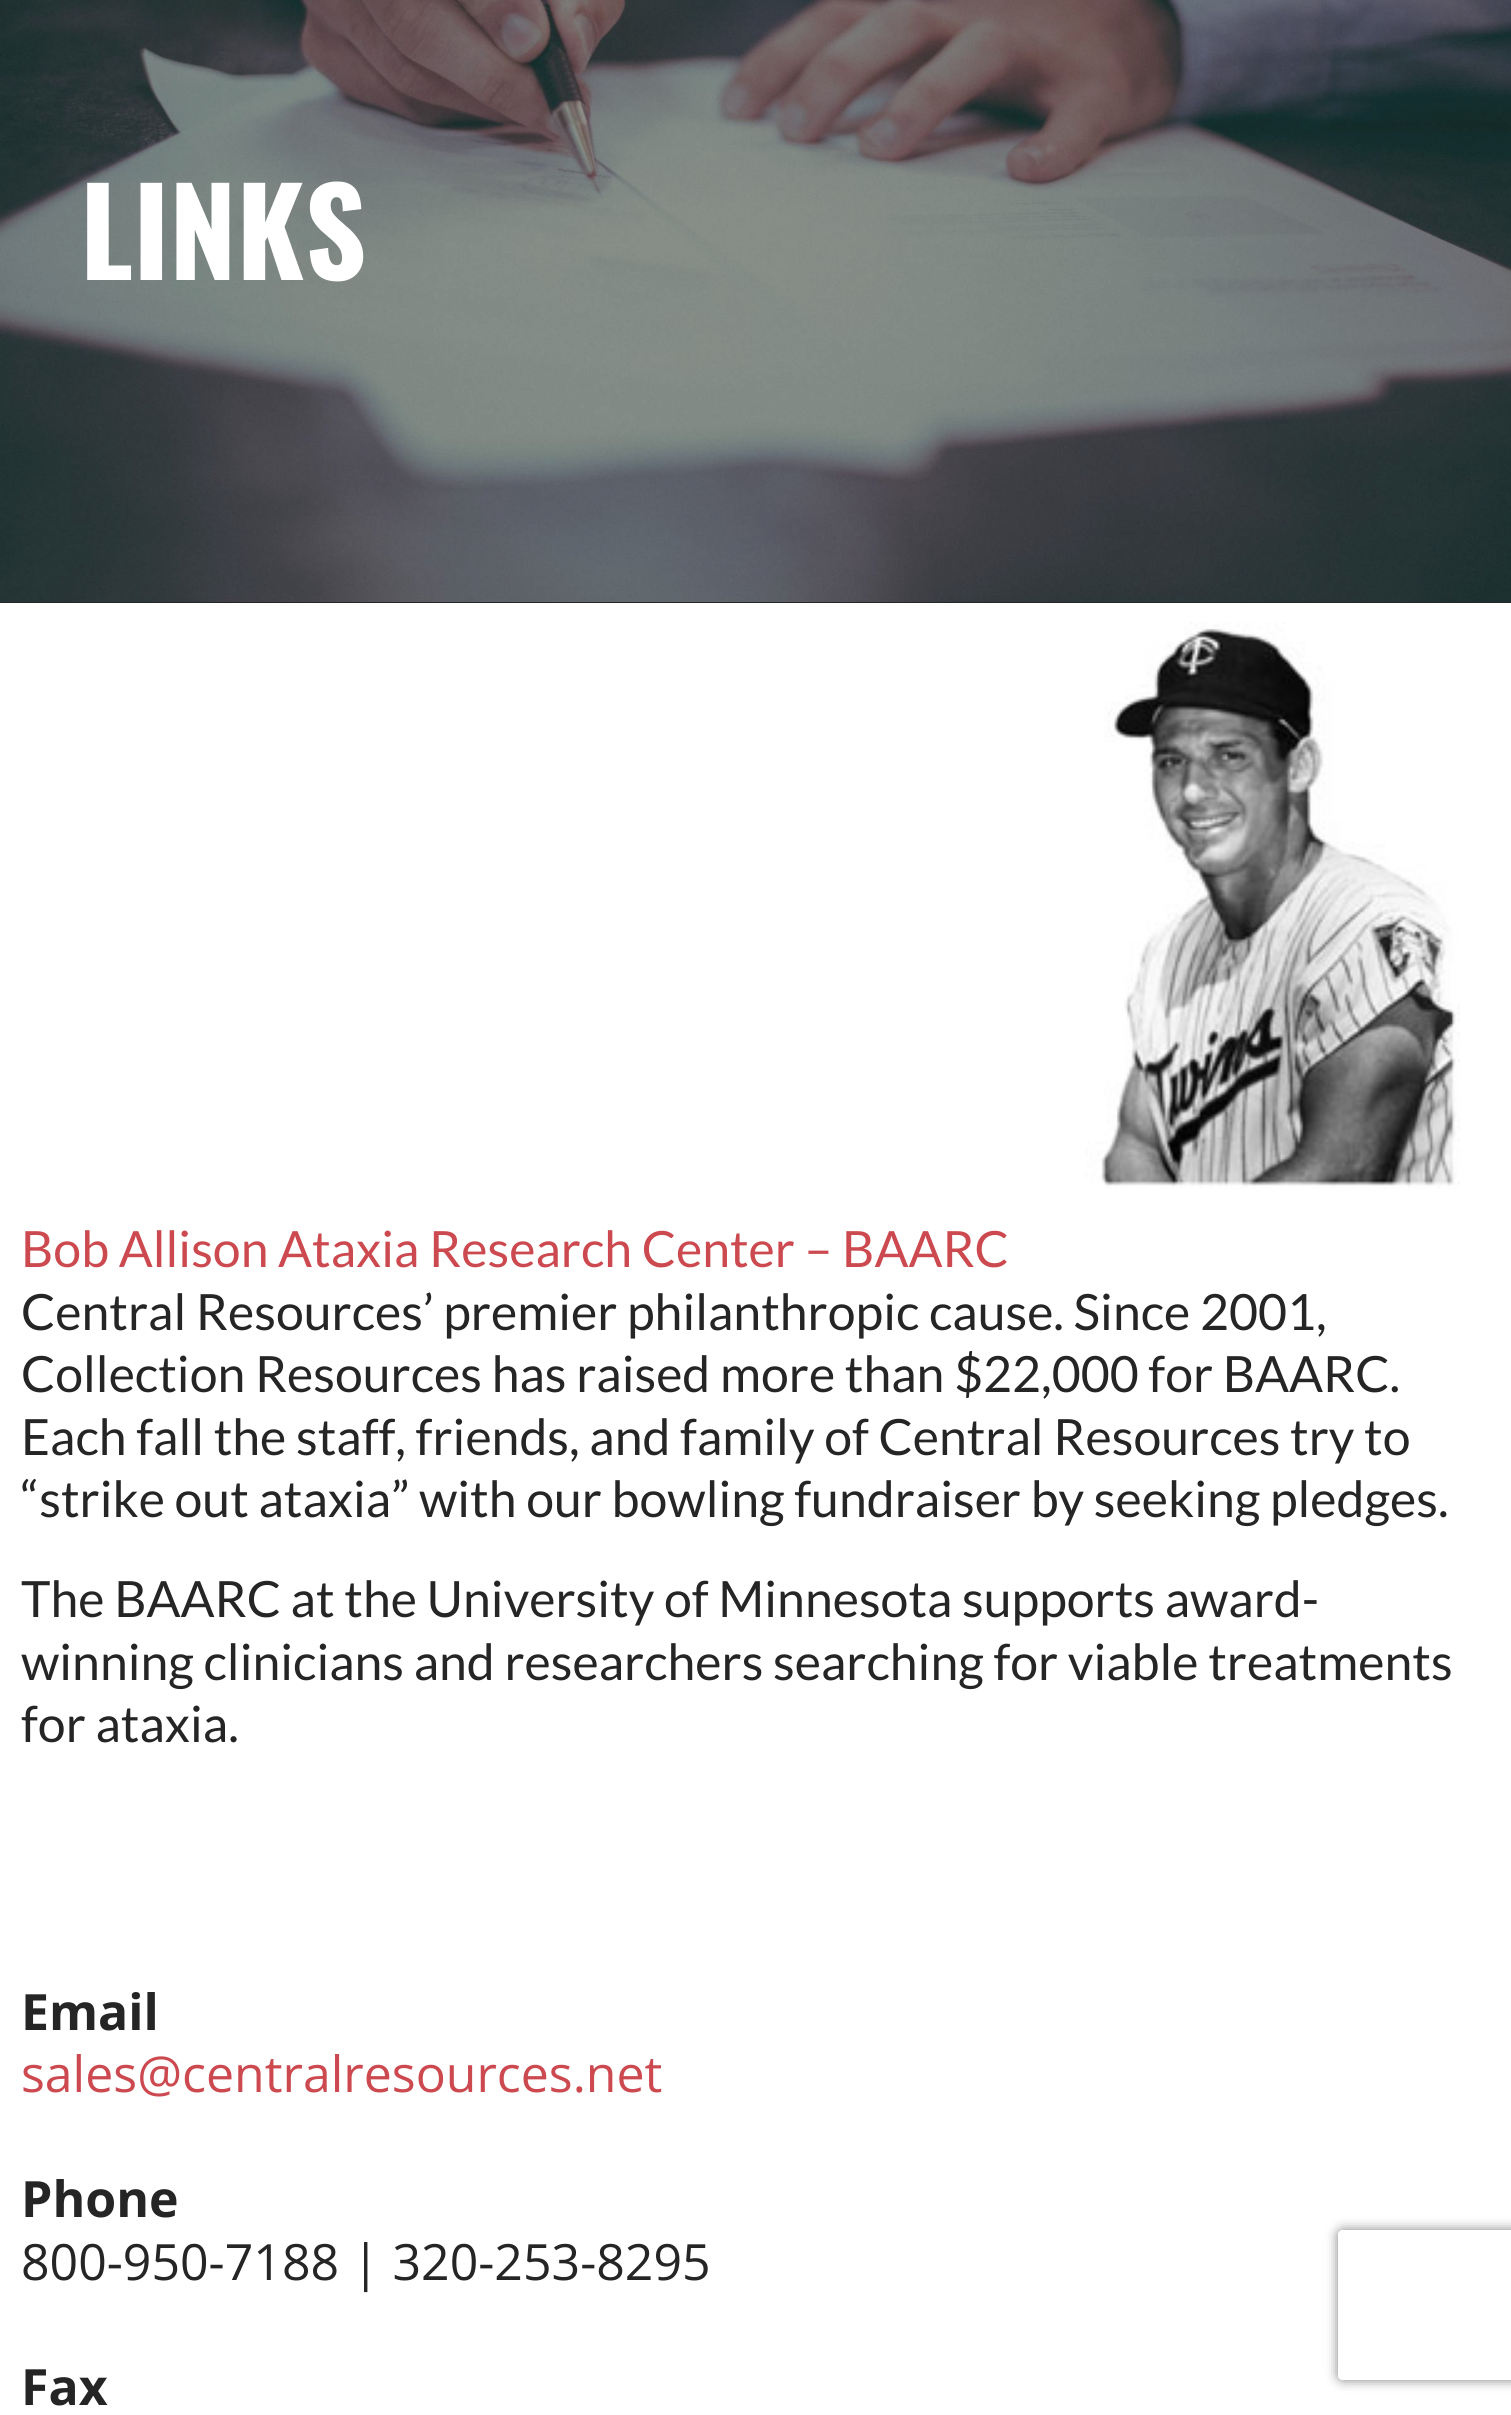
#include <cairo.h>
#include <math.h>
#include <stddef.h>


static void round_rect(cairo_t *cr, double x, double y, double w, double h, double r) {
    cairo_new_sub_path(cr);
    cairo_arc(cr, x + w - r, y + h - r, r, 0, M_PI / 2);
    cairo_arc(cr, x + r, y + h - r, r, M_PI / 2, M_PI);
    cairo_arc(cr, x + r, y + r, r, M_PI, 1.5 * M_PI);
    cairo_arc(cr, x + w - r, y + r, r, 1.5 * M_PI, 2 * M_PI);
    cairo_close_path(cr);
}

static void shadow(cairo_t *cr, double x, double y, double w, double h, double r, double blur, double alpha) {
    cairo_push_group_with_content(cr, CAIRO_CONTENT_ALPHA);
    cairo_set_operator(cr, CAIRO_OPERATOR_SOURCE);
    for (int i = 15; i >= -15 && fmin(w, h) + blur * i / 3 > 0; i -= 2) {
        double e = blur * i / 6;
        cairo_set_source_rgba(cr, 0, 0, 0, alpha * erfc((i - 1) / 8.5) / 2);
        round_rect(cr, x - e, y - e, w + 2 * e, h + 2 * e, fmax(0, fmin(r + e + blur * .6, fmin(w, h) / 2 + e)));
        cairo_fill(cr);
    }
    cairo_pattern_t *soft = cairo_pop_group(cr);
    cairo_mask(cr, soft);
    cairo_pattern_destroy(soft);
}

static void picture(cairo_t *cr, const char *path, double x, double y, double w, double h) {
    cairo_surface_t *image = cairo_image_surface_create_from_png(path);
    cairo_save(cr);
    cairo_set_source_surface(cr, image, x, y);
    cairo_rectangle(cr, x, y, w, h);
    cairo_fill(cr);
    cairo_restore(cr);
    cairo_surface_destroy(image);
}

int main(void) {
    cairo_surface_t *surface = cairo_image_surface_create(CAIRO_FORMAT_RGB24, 1511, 2415);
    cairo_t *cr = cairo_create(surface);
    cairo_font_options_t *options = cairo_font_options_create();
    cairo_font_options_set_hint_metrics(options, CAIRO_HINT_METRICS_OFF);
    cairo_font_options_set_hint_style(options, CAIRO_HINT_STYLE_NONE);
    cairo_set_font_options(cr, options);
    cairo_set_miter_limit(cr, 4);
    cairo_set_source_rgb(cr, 1, 1, 1);
    cairo_paint(cr);
    cairo_set_source_rgb(cr, 0.145, 0.145, 0.145);
    cairo_rectangle(cr, 0, 602, 1511, 1);
    cairo_fill(cr);
    picture(cr, "img1.png", 0, 0, 1511, 602);
    cairo_select_font_face(cr, "Oswald", CAIRO_FONT_SLANT_NORMAL, CAIRO_FONT_WEIGHT_BOLD);
    cairo_set_font_size(cr, 120);
    cairo_set_source_rgb(cr, 1, 1, 1);
    cairo_move_to(cr, 80, 280);
    cairo_show_text(cr, "LINKS");
    picture(cr, "img2.png", 1085, 622, 375, 567);
    cairo_select_font_face(cr, "Lato", CAIRO_FONT_SLANT_NORMAL, CAIRO_FONT_WEIGHT_NORMAL);
    cairo_set_font_size(cr, 50);
    cairo_set_source_rgb(cr, 0.8, 0.286, 0.31);
    cairo_move_to(cr, 21, 1267);
    cairo_show_text(cr, "Bob Allison Ataxia Research Center – BAARC");
    cairo_set_source_rgb(cr, 0.145, 0.145, 0.145);
    cairo_move_to(cr, 21, 1330);
    cairo_show_text(cr, "Central Resources’ premier philanthropic cause. Since 2001,");
    cairo_move_to(cr, 21, 1392);
    cairo_show_text(cr, "Collection Resources has raised more than $22,000 for BAARC.");
    cairo_move_to(cr, 21, 1455);
    cairo_show_text(cr, "Each fall the staff, friends, and family of Central Resources try to");
    cairo_move_to(cr, 21, 1517);
    cairo_show_text(cr, "“strike out ataxia” with our bowling fundraiser by seeking pledges.");
    cairo_move_to(cr, 21, 1617);
    cairo_show_text(cr, "The BAARC at the University of Minnesota supports award-");
    cairo_move_to(cr, 21, 1680);
    cairo_show_text(cr, "winning clinicians and researchers searching for viable treatments");
    cairo_move_to(cr, 21, 1742);
    cairo_show_text(cr, "for ataxia.");
    cairo_select_font_face(cr, "Open Sans", CAIRO_FONT_SLANT_NORMAL, CAIRO_FONT_WEIGHT_BOLD);
    cairo_move_to(cr, 21, 2030);
    cairo_show_text(cr, "Email");
    cairo_select_font_face(cr, "Open Sans", CAIRO_FONT_SLANT_NORMAL, CAIRO_FONT_WEIGHT_NORMAL);
    cairo_set_source_rgb(cr, 0.8, 0.286, 0.31);
    cairo_move_to(cr, 21, 2092);
    cairo_show_text(cr, "sales@centralresources.net");
    cairo_select_font_face(cr, "Open Sans", CAIRO_FONT_SLANT_NORMAL, CAIRO_FONT_WEIGHT_BOLD);
    cairo_set_source_rgb(cr, 0.145, 0.145, 0.145);
    cairo_move_to(cr, 21, 2217);
    cairo_show_text(cr, "Phone");
    cairo_select_font_face(cr, "Open Sans", CAIRO_FONT_SLANT_NORMAL, CAIRO_FONT_WEIGHT_NORMAL);
    cairo_move_to(cr, 21, 2280);
    cairo_show_text(cr, "800-950-7188 | 320-253-8295");
    cairo_select_font_face(cr, "Open Sans", CAIRO_FONT_SLANT_NORMAL, CAIRO_FONT_WEIGHT_BOLD);
    cairo_move_to(cr, 21, 2405);
    cairo_show_text(cr, "Fax");
    cairo_save(cr);
    cairo_set_fill_rule(cr, CAIRO_FILL_RULE_EVEN_ODD);
    cairo_new_path(cr);
    cairo_move_to(cr, 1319, 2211);
    cairo_line_to(cr, 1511, 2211);
    cairo_line_to(cr, 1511, 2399);
    cairo_line_to(cr, 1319, 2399);
    cairo_close_path(cr);
    cairo_move_to(cr, 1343, 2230);
    cairo_line_to(cr, 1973, 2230);
    cairo_curve_to(cr, 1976, 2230, 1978, 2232, 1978, 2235);
    cairo_line_to(cr, 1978, 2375);
    cairo_curve_to(cr, 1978, 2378, 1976, 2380, 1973, 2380);
    cairo_line_to(cr, 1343, 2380);
    cairo_curve_to(cr, 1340, 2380, 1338, 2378, 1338, 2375);
    cairo_line_to(cr, 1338, 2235);
    cairo_curve_to(cr, 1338, 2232, 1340, 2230, 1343, 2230);
    cairo_close_path(cr);
    cairo_clip(cr);
    cairo_set_source_rgb(cr, 0.502, 0.502, 0.502);
    shadow(cr, 1338, 2230, 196, 150, 5, 6, 1);
    cairo_restore(cr);
    cairo_surface_write_to_png(surface, "page.png");
    cairo_font_options_destroy(options);
    cairo_destroy(cr);
    cairo_surface_destroy(surface);
    return 0;
}
